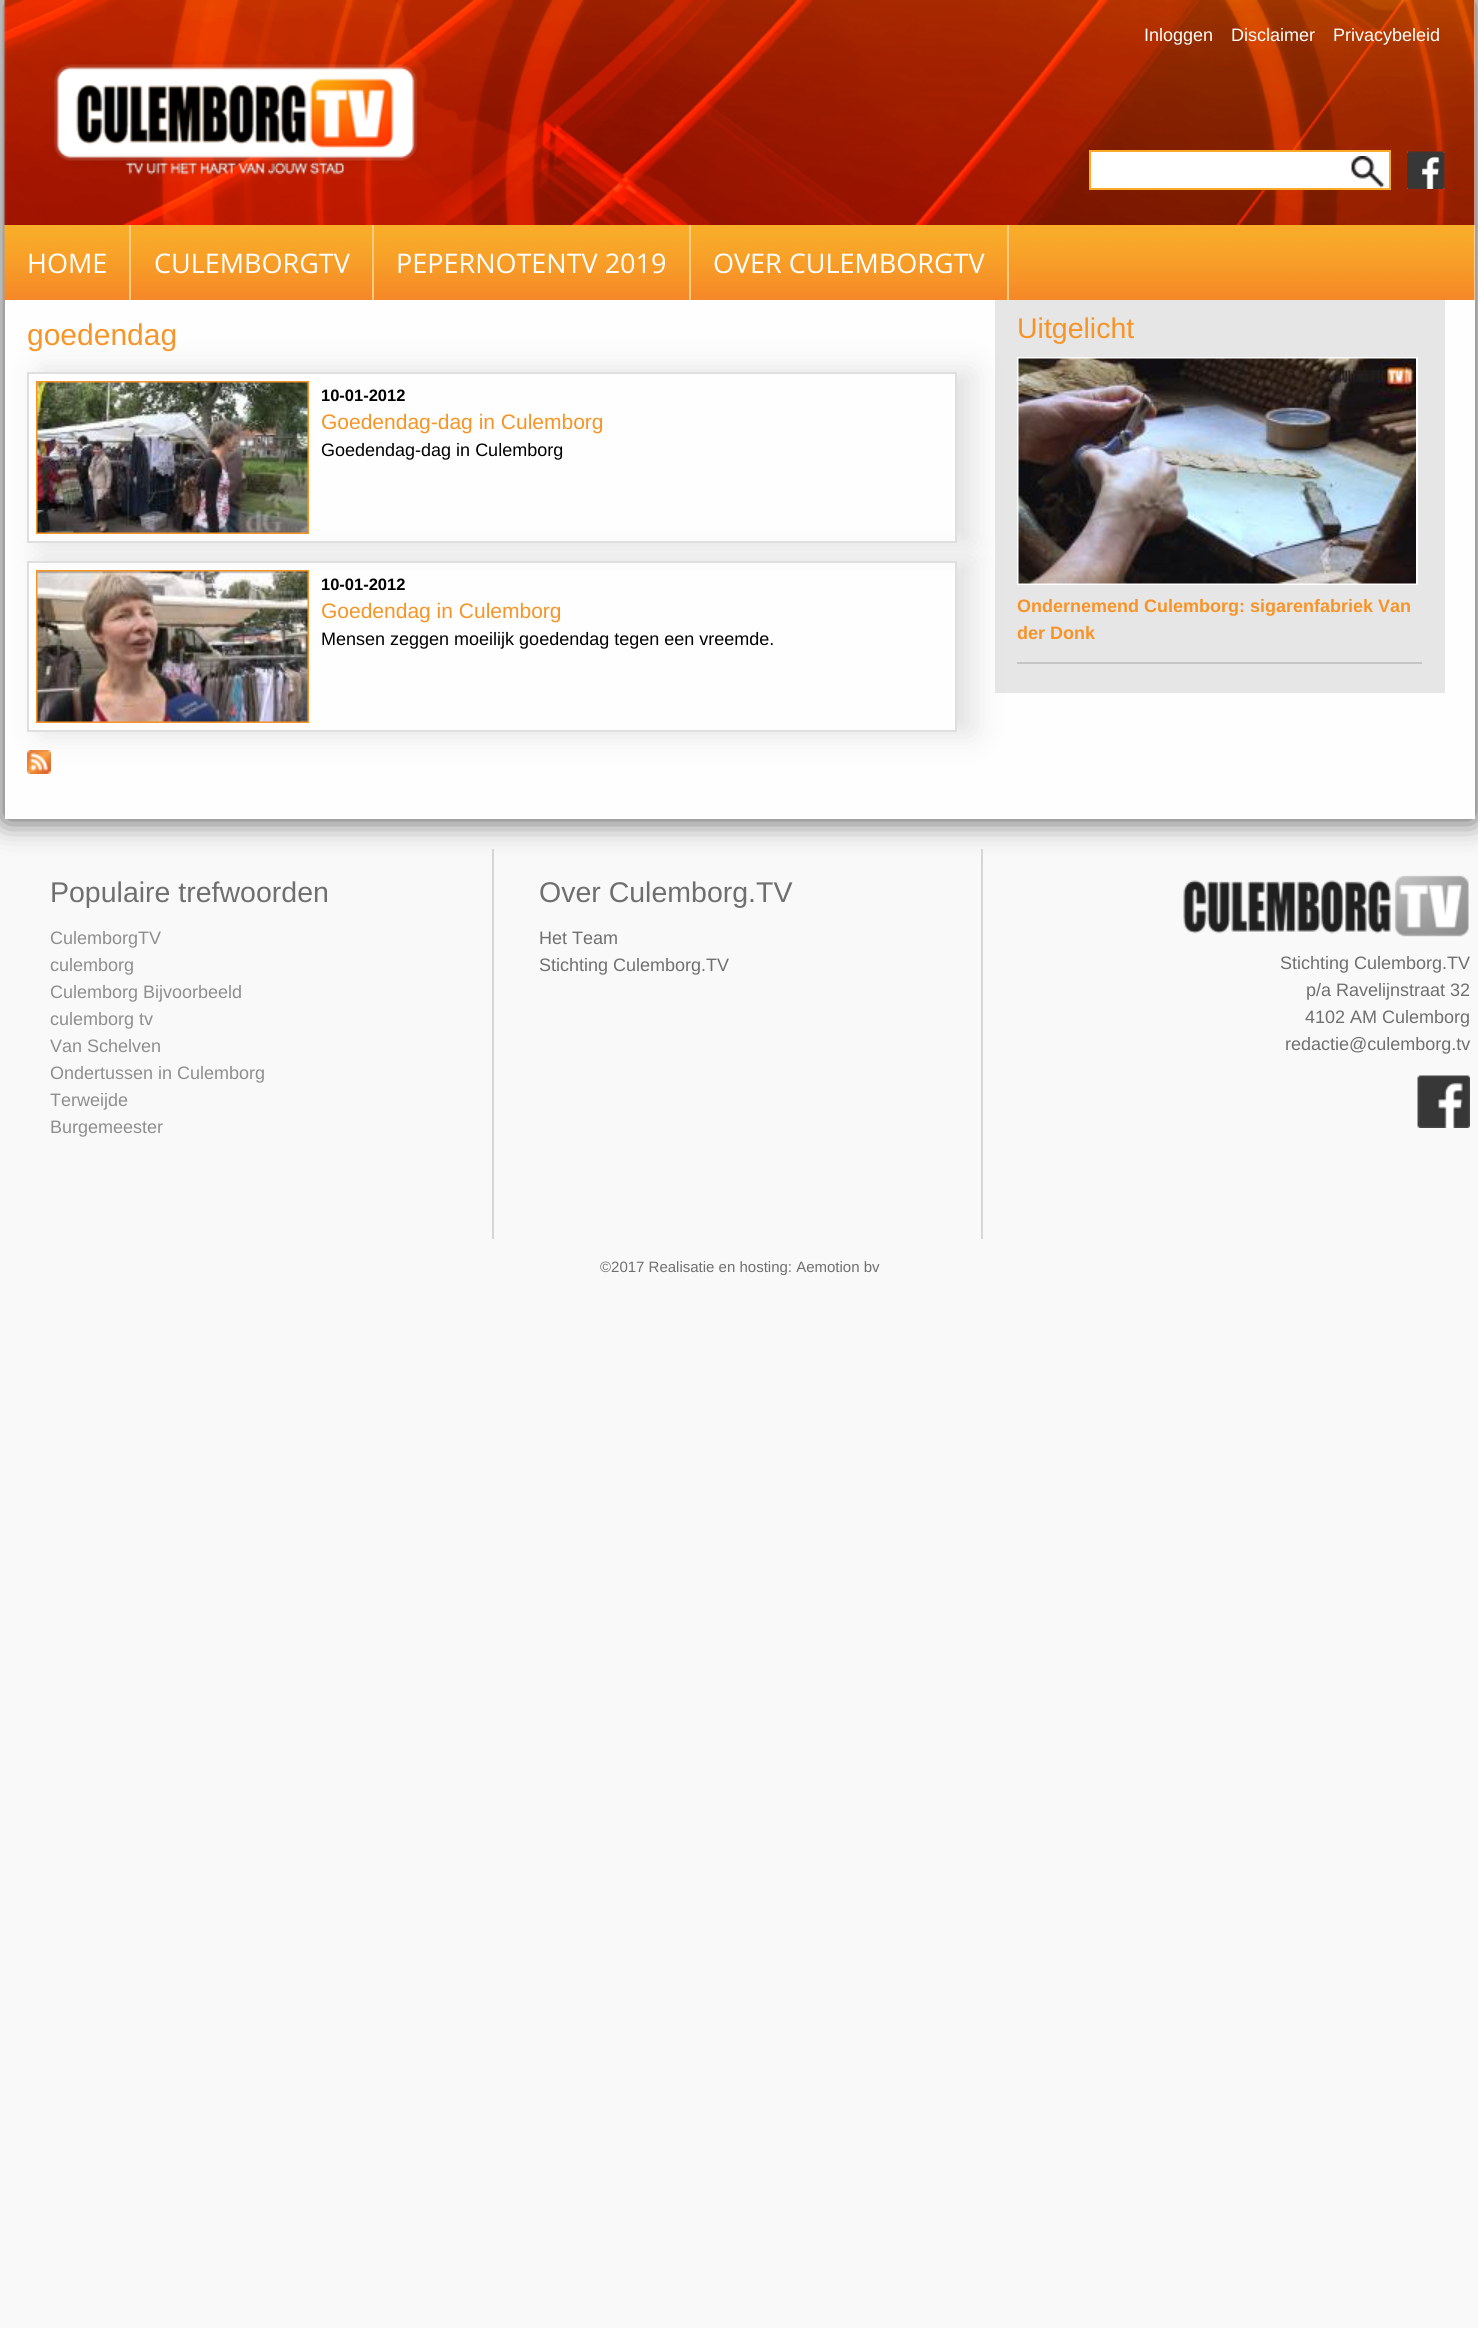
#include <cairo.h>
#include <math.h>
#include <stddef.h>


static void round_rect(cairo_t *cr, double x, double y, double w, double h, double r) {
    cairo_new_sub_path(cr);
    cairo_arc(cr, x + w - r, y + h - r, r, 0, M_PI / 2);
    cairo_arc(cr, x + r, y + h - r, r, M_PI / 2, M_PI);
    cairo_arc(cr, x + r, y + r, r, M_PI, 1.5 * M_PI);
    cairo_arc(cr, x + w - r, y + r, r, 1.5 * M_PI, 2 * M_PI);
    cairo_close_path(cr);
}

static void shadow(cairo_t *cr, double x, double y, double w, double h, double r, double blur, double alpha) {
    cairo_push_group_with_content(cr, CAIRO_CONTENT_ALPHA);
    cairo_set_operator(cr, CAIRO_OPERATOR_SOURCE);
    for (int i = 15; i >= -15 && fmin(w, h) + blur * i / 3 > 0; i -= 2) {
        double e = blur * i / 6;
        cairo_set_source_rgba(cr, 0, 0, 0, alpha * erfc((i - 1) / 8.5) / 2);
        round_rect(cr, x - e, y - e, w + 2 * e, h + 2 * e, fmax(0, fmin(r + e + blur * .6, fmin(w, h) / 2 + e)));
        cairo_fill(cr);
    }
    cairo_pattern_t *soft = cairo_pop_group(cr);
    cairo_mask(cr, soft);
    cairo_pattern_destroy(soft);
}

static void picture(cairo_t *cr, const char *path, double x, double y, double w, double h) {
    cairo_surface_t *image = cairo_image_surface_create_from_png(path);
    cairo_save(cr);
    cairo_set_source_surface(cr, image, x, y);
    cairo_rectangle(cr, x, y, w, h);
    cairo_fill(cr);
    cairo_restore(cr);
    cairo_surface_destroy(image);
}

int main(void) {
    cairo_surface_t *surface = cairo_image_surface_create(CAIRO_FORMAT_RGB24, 1478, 2328);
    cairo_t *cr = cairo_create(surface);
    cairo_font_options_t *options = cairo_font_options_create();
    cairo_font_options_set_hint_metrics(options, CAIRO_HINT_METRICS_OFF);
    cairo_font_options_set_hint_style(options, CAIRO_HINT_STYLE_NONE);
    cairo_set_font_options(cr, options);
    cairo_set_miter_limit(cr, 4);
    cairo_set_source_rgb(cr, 0.973, 0.973, 0.973);
    cairo_paint(cr);
    cairo_set_source_rgb(cr, 0.286, 0.286, 0.286);
    shadow(cr, 5, 0, 1470, 819, 0, 15, 1);
    cairo_set_source_rgb(cr, 0.996, 0.996, 0.996);
    cairo_rectangle(cr, 5, 0, 1470, 819);
    cairo_fill(cr);
    picture(cr, "img1.png", 4, 0, 1471, 225);
    cairo_select_font_face(cr, "Liberation Sans", CAIRO_FONT_SLANT_NORMAL, CAIRO_FONT_WEIGHT_NORMAL);
    cairo_set_font_size(cr, 18);
    cairo_set_source_rgb(cr, 1, 1, 1);
    cairo_move_to(cr, 1144, 41);
    cairo_show_text(cr, "Inloggen");
    cairo_move_to(cr, 1231, 41);
    cairo_show_text(cr, "Disclaimer");
    cairo_move_to(cr, 1333, 41);
    cairo_show_text(cr, "Privacybeleid");
    cairo_rectangle(cr, 1091, 152, 298, 36);
    cairo_fill(cr);
    cairo_set_source_rgb(cr, 0.976, 0.667, 0.161);
    cairo_rectangle(cr, 1089, 150, 302, 2);
    cairo_fill(cr);
    cairo_rectangle(cr, 1089, 188, 257, 2);
    cairo_fill(cr);
    cairo_rectangle(cr, 1089, 150, 2, 39);
    cairo_fill(cr);
    picture(cr, "img2.png", 1351, 156, 34, 32);
    cairo_rectangle(cr, 1389, 150, 2, 39);
    cairo_fill(cr);
    cairo_rectangle(cr, 1346, 188, 45, 2);
    cairo_fill(cr);
    picture(cr, "img3.png", 1407, 151, 38, 38);
    picture(cr, "img4.png", 50, 61, 371, 114);
    picture(cr, "img5.png", 4, 225, 1471, 75);
    cairo_set_source_rgb(cr, 0.98, 0.796, 0.506);
    cairo_rectangle(cr, 129, 225, 2, 75);
    cairo_fill(cr);
    cairo_select_font_face(cr, "Open Sans", CAIRO_FONT_SLANT_NORMAL, CAIRO_FONT_WEIGHT_NORMAL);
    cairo_set_font_size(cr, 27);
    cairo_set_source_rgb(cr, 1, 1, 1);
    cairo_move_to(cr, 27, 273);
    cairo_show_text(cr, "HOME");
    cairo_set_source_rgb(cr, 0.98, 0.796, 0.506);
    cairo_rectangle(cr, 372, 225, 2, 75);
    cairo_fill(cr);
    cairo_set_source_rgb(cr, 1, 1, 1);
    cairo_move_to(cr, 154, 273);
    cairo_show_text(cr, "CULEMBORGTV");
    cairo_set_source_rgb(cr, 0.98, 0.796, 0.506);
    cairo_rectangle(cr, 689, 225, 2, 75);
    cairo_fill(cr);
    cairo_set_source_rgb(cr, 1, 1, 1);
    cairo_move_to(cr, 396, 273);
    cairo_show_text(cr, "PEPERNOTENTV 2019");
    cairo_set_source_rgb(cr, 0.98, 0.796, 0.506);
    cairo_rectangle(cr, 1007, 225, 2, 75);
    cairo_fill(cr);
    cairo_set_source_rgb(cr, 1, 1, 1);
    cairo_move_to(cr, 713, 273);
    cairo_show_text(cr, "OVER CULEMBORGTV");
    cairo_select_font_face(cr, "Liberation Sans", CAIRO_FONT_SLANT_NORMAL, CAIRO_FONT_WEIGHT_NORMAL);
    cairo_set_font_size(cr, 30);
    cairo_set_source_rgb(cr, 0.965, 0.58, 0.153);
    cairo_move_to(cr, 27, 345);
    cairo_show_text(cr, "goedendag");
    cairo_set_source_rgb(cr, 0.902, 0.902, 0.902);
    cairo_rectangle(cr, 995, 300, 450, 393);
    cairo_fill(cr);
    cairo_rectangle(cr, 1018, 358, 399, 226);
    cairo_set_source_rgb(cr, 1, 1, 1);
    cairo_stroke(cr);
    cairo_save(cr);
    cairo_set_fill_rule(cr, CAIRO_FILL_RULE_EVEN_ODD);
    cairo_new_path(cr);
    cairo_move_to(cr, 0, 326);
    cairo_line_to(cr, 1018, 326);
    cairo_line_to(cr, 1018, 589);
    cairo_line_to(cr, 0, 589);
    cairo_close_path(cr);
    cairo_move_to(cr, 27, 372);
    cairo_line_to(cr, 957, 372);
    cairo_line_to(cr, 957, 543);
    cairo_line_to(cr, 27, 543);
    cairo_close_path(cr);
    cairo_clip(cr);
    cairo_set_source_rgb(cr, 0.878, 0.875, 0.875);
    shadow(cr, 42, 372, 930, 171, 0, 15, 1);
    cairo_restore(cr);
    cairo_rectangle(cr, 28, 373, 928, 169);
    cairo_set_source_rgb(cr, 0.878, 0.875, 0.875);
    cairo_stroke(cr);
    cairo_rectangle(cr, 37, 382, 271, 151);
    cairo_set_source_rgb(cr, 0.965, 0.58, 0.153);
    cairo_stroke(cr);
    picture(cr, "img6.png", 37, 382, 271, 151);
    cairo_select_font_face(cr, "Liberation Sans", CAIRO_FONT_SLANT_NORMAL, CAIRO_FONT_WEIGHT_BOLD);
    cairo_set_font_size(cr, 16.5);
    cairo_set_source_rgb(cr, 0, 0, 0);
    cairo_move_to(cr, 321, 401);
    cairo_show_text(cr, "10-01-2012");
    cairo_select_font_face(cr, "Liberation Sans", CAIRO_FONT_SLANT_NORMAL, CAIRO_FONT_WEIGHT_NORMAL);
    cairo_set_font_size(cr, 21);
    cairo_set_source_rgb(cr, 0.965, 0.58, 0.153);
    cairo_move_to(cr, 321, 429);
    cairo_show_text(cr, "Goedendag-dag in Culemborg");
    cairo_set_font_size(cr, 18);
    cairo_set_source_rgb(cr, 0, 0, 0);
    cairo_move_to(cr, 321, 456);
    cairo_show_text(cr, "Goedendag-dag in Culemborg");
    picture(cr, "img8.png", 27, 750, 24, 24);
    cairo_set_source_rgb(cr, 0.773, 0.773, 0.773);
    cairo_rectangle(cr, 1017, 662, 405, 2);
    cairo_fill(cr);
    cairo_save(cr);
    cairo_set_fill_rule(cr, CAIRO_FILL_RULE_EVEN_ODD);
    cairo_new_path(cr);
    cairo_move_to(cr, 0, 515);
    cairo_line_to(cr, 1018, 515);
    cairo_line_to(cr, 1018, 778);
    cairo_line_to(cr, 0, 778);
    cairo_close_path(cr);
    cairo_move_to(cr, 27, 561);
    cairo_line_to(cr, 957, 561);
    cairo_line_to(cr, 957, 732);
    cairo_line_to(cr, 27, 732);
    cairo_close_path(cr);
    cairo_clip(cr);
    cairo_set_source_rgb(cr, 0.878, 0.875, 0.875);
    shadow(cr, 42, 561, 930, 171, 0, 15, 1);
    cairo_restore(cr);
    cairo_rectangle(cr, 28, 562, 928, 169);
    cairo_set_source_rgb(cr, 0.878, 0.875, 0.875);
    cairo_stroke(cr);
    cairo_rectangle(cr, 37, 571, 271, 151);
    cairo_set_source_rgb(cr, 0.965, 0.58, 0.153);
    cairo_stroke(cr);
    picture(cr, "img7.png", 37, 571, 271, 151);
    cairo_select_font_face(cr, "Liberation Sans", CAIRO_FONT_SLANT_NORMAL, CAIRO_FONT_WEIGHT_BOLD);
    cairo_set_font_size(cr, 16.5);
    cairo_set_source_rgb(cr, 0, 0, 0);
    cairo_move_to(cr, 321, 590);
    cairo_show_text(cr, "10-01-2012");
    cairo_select_font_face(cr, "Liberation Sans", CAIRO_FONT_SLANT_NORMAL, CAIRO_FONT_WEIGHT_NORMAL);
    cairo_set_font_size(cr, 21);
    cairo_set_source_rgb(cr, 0.965, 0.58, 0.153);
    cairo_move_to(cr, 321, 618);
    cairo_show_text(cr, "Goedendag in Culemborg");
    cairo_set_font_size(cr, 18);
    cairo_set_source_rgb(cr, 0, 0, 0);
    cairo_move_to(cr, 321, 645);
    cairo_show_text(cr, "Mensen zeggen moeilijk goedendag tegen een vreemde.");
    cairo_set_font_size(cr, 28.5);
    cairo_set_source_rgb(cr, 0.965, 0.58, 0.153);
    cairo_move_to(cr, 1017, 338);
    cairo_show_text(cr, "Uitgelicht");
    picture(cr, "img9.png", 1018, 358, 398, 226);
    cairo_select_font_face(cr, "Liberation Sans", CAIRO_FONT_SLANT_NORMAL, CAIRO_FONT_WEIGHT_BOLD);
    cairo_set_font_size(cr, 18);
    cairo_move_to(cr, 1017, 612);
    cairo_show_text(cr, "Ondernemend Culemborg: sigarenfabriek Van");
    cairo_move_to(cr, 1017, 639);
    cairo_show_text(cr, "der Donk");
    cairo_set_source_rgb(cr, 0.839, 0.839, 0.839);
    cairo_rectangle(cr, 492, 849, 2, 390);
    cairo_fill(cr);
    cairo_select_font_face(cr, "Liberation Sans", CAIRO_FONT_SLANT_NORMAL, CAIRO_FONT_WEIGHT_NORMAL);
    cairo_set_font_size(cr, 28.5);
    cairo_set_source_rgb(cr, 0.439, 0.435, 0.435);
    cairo_move_to(cr, 50, 902);
    cairo_show_text(cr, "Populaire trefwoorden");
    cairo_set_font_size(cr, 18);
    cairo_set_source_rgb(cr, 0.557, 0.557, 0.557);
    cairo_move_to(cr, 50, 944);
    cairo_show_text(cr, "CulemborgTV");
    cairo_move_to(cr, 50, 971);
    cairo_show_text(cr, "culemborg");
    cairo_move_to(cr, 50, 998);
    cairo_show_text(cr, "Culemborg Bijvoorbeeld");
    cairo_move_to(cr, 50, 1025);
    cairo_show_text(cr, "culemborg tv");
    cairo_move_to(cr, 50, 1052);
    cairo_show_text(cr, "Van Schelven");
    cairo_move_to(cr, 50, 1079);
    cairo_show_text(cr, "Ondertussen in Culemborg");
    cairo_move_to(cr, 50, 1106);
    cairo_show_text(cr, "Terweijde");
    cairo_move_to(cr, 50, 1133);
    cairo_show_text(cr, "Burgemeester");
    cairo_set_source_rgb(cr, 0.839, 0.839, 0.839);
    cairo_rectangle(cr, 981, 849, 2, 390);
    cairo_fill(cr);
    cairo_set_font_size(cr, 28.5);
    cairo_set_source_rgb(cr, 0.439, 0.435, 0.435);
    cairo_move_to(cr, 539, 902);
    cairo_show_text(cr, "Over Culemborg.TV");
    cairo_set_font_size(cr, 18);
    cairo_move_to(cr, 539, 944);
    cairo_show_text(cr, "Het Team");
    cairo_move_to(cr, 539, 971);
    cairo_show_text(cr, "Stichting Culemborg.TV");
    picture(cr, "img10.png", 1183, 875, 286, 62);
    cairo_move_to(cr, 1280, 969);
    cairo_show_text(cr, "Stichting Culemborg.TV");
    cairo_move_to(cr, 1306, 996);
    cairo_show_text(cr, "p/a Ravelijnstraat 32");
    cairo_move_to(cr, 1305, 1023);
    cairo_show_text(cr, "4102 AM Culemborg");
    cairo_move_to(cr, 1285, 1050);
    cairo_show_text(cr, "redactie@culemborg.tv");
    picture(cr, "img11.png", 1417, 1075, 53, 53);
    cairo_set_font_size(cr, 15);
    cairo_move_to(cr, 600, 1272);
    cairo_show_text(cr, "©2017 Realisatie en hosting: Aemotion bv");
    cairo_surface_write_to_png(surface, "page.png");
    cairo_font_options_destroy(options);
    cairo_destroy(cr);
    cairo_surface_destroy(surface);
    return 0;
}
